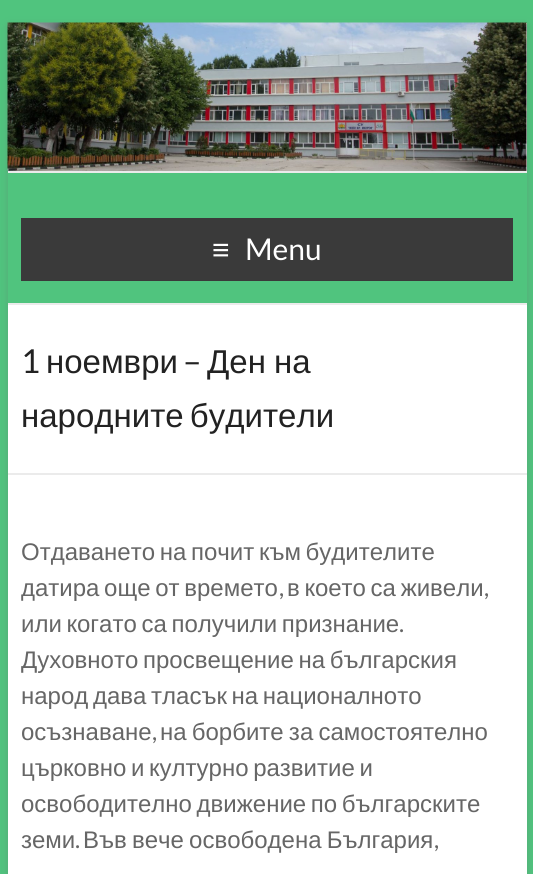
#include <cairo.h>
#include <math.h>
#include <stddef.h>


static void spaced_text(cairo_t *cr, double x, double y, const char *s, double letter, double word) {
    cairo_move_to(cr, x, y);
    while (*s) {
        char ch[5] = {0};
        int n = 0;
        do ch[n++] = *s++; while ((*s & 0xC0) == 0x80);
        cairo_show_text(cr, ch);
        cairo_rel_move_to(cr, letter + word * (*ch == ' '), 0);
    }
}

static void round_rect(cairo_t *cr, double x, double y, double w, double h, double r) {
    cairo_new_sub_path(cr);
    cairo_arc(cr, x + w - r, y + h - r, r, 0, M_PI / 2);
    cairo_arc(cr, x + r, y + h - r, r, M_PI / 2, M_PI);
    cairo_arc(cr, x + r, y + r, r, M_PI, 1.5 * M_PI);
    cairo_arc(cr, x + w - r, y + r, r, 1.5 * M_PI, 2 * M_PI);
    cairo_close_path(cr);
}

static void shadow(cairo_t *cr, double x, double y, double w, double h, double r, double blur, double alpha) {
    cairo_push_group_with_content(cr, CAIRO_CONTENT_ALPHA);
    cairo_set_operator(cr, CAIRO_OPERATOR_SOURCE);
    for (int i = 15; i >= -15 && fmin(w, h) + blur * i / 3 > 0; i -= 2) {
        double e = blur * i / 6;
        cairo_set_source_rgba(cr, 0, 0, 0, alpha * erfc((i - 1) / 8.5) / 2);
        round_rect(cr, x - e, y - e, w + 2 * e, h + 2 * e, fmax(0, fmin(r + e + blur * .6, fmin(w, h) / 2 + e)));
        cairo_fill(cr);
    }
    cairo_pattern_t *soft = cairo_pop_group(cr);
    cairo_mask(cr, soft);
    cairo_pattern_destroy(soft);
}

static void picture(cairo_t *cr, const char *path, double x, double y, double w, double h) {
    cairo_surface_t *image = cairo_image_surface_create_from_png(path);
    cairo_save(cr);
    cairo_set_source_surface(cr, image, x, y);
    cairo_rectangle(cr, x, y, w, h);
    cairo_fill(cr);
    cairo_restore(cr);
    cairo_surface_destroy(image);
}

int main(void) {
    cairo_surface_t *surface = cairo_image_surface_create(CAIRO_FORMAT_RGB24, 533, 874);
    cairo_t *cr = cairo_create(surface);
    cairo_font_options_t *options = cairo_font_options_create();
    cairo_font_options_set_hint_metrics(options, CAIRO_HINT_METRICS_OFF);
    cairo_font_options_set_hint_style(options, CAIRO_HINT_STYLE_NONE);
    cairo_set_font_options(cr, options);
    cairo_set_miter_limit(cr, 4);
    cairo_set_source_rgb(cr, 0.314, 0.769, 0.494);
    cairo_paint(cr);
    cairo_set_source_rgb(cr, 0.392, 0.392, 0.392);
    shadow(cr, 8, 26, 519, 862, 0, 4.5, 0.3);
    cairo_set_source_rgb(cr, 1, 1, 1);
    cairo_rectangle(cr, 8, 23, 519, 851);
    cairo_fill(cr);
    picture(cr, "img1.png", 7, 22, 520, 149);
    cairo_set_source_rgb(cr, 0.918, 0.918, 0.918);
    cairo_rectangle(cr, 8, 171, 519, 2);
    cairo_fill(cr);
    cairo_set_source_rgb(cr, 0.314, 0.769, 0.494);
    cairo_rectangle(cr, 8, 173, 519, 130);
    cairo_fill(cr);
    cairo_set_source_rgb(cr, 0.918, 0.918, 0.918);
    cairo_rectangle(cr, 8, 303, 519, 2);
    cairo_fill(cr);
    cairo_set_source_rgb(cr, 0.227, 0.227, 0.227);
    cairo_rectangle(cr, 21, 218, 492, 63);
    cairo_fill(cr);
    cairo_select_font_face(cr, "Liberation Sans", CAIRO_FONT_SLANT_NORMAL, CAIRO_FONT_WEIGHT_NORMAL);
    cairo_set_font_size(cr, 30);
    cairo_set_source_rgb(cr, 1, 1, 1);
    cairo_move_to(cr, 212, 260);
    cairo_show_text(cr, "≡");
    cairo_select_font_face(cr, "Lato", CAIRO_FONT_SLANT_NORMAL, CAIRO_FONT_WEIGHT_NORMAL);
    cairo_move_to(cr, 245, 260);
    cairo_show_text(cr, "Menu");
    cairo_set_source_rgb(cr, 0.918, 0.918, 0.918);
    cairo_rectangle(cr, 8, 473, 519, 2);
    cairo_fill(cr);
    cairo_set_font_size(cr, 33);
    cairo_set_source_rgb(cr, 0.133, 0.133, 0.133);
    cairo_move_to(cr, 21, 373);
    cairo_show_text(cr, "1");
    cairo_select_font_face(cr, "Liberation Sans", CAIRO_FONT_SLANT_NORMAL, CAIRO_FONT_WEIGHT_NORMAL);
    cairo_move_to(cr, 46, 373);
    cairo_show_text(cr, "ноември");
    cairo_select_font_face(cr, "Lato", CAIRO_FONT_SLANT_NORMAL, CAIRO_FONT_WEIGHT_NORMAL);
    cairo_move_to(cr, 183, 373);
    cairo_show_text(cr, "–");
    cairo_select_font_face(cr, "Liberation Sans", CAIRO_FONT_SLANT_NORMAL, CAIRO_FONT_WEIGHT_NORMAL);
    spaced_text(cr, 207, 373, "Ден на", 0, -1);
    spaced_text(cr, 21, 427, "народните будители", 0, -3);
    cairo_set_font_size(cr, 24);
    cairo_set_source_rgb(cr, 0.4, 0.4, 0.4);
    spaced_text(cr, 21, 560, "Отдаването на почит към будителите", 0, -2);
    spaced_text(cr, 21, 596, "датира още от времето", 0, -2);
    cairo_select_font_face(cr, "Lato", CAIRO_FONT_SLANT_NORMAL, CAIRO_FONT_WEIGHT_NORMAL);
    cairo_move_to(cr, 279, 596);
    cairo_show_text(cr, ",");
    cairo_select_font_face(cr, "Liberation Sans", CAIRO_FONT_SLANT_NORMAL, CAIRO_FONT_WEIGHT_NORMAL);
    spaced_text(cr, 287, 596, "в което са живели", 0, -2);
    cairo_select_font_face(cr, "Lato", CAIRO_FONT_SLANT_NORMAL, CAIRO_FONT_WEIGHT_NORMAL);
    cairo_move_to(cr, 484, 596);
    cairo_show_text(cr, ",");
    cairo_select_font_face(cr, "Liberation Sans", CAIRO_FONT_SLANT_NORMAL, CAIRO_FONT_WEIGHT_NORMAL);
    spaced_text(cr, 21, 632, "или когато са получили признание", 0, -2);
    cairo_select_font_face(cr, "Lato", CAIRO_FONT_SLANT_NORMAL, CAIRO_FONT_WEIGHT_NORMAL);
    cairo_move_to(cr, 399, 632);
    cairo_show_text(cr, ".");
    cairo_select_font_face(cr, "Liberation Sans", CAIRO_FONT_SLANT_NORMAL, CAIRO_FONT_WEIGHT_NORMAL);
    spaced_text(cr, 21, 668, "Духовното просвещение на българския", 0, -2);
    spaced_text(cr, 21, 704, "народ дава тласък на националното", 0, -2);
    cairo_move_to(cr, 21, 740);
    cairo_show_text(cr, "осъзнаване");
    cairo_select_font_face(cr, "Lato", CAIRO_FONT_SLANT_NORMAL, CAIRO_FONT_WEIGHT_NORMAL);
    cairo_move_to(cr, 152, 740);
    cairo_show_text(cr, ",");
    cairo_select_font_face(cr, "Liberation Sans", CAIRO_FONT_SLANT_NORMAL, CAIRO_FONT_WEIGHT_NORMAL);
    spaced_text(cr, 160, 740, "на борбите за самостоятелно", 0, -1.5);
    spaced_text(cr, 21, 776, "църковно и културно развитие и", 0, -2);
    spaced_text(cr, 21, 812, "освободително движение по българските", 0, -2);
    cairo_move_to(cr, 21, 848);
    cairo_show_text(cr, "земи");
    cairo_select_font_face(cr, "Lato", CAIRO_FONT_SLANT_NORMAL, CAIRO_FONT_WEIGHT_NORMAL);
    cairo_move_to(cr, 75, 848);
    cairo_show_text(cr, ".");
    cairo_select_font_face(cr, "Liberation Sans", CAIRO_FONT_SLANT_NORMAL, CAIRO_FONT_WEIGHT_NORMAL);
    spaced_text(cr, 83, 848, "Във вече освободена България", 0, -1.5);
    cairo_select_font_face(cr, "Lato", CAIRO_FONT_SLANT_NORMAL, CAIRO_FONT_WEIGHT_NORMAL);
    cairo_move_to(cr, 434, 848);
    cairo_show_text(cr, ",");
    cairo_surface_write_to_png(surface, "page.png");
    cairo_font_options_destroy(options);
    cairo_destroy(cr);
    cairo_surface_destroy(surface);
    return 0;
}
